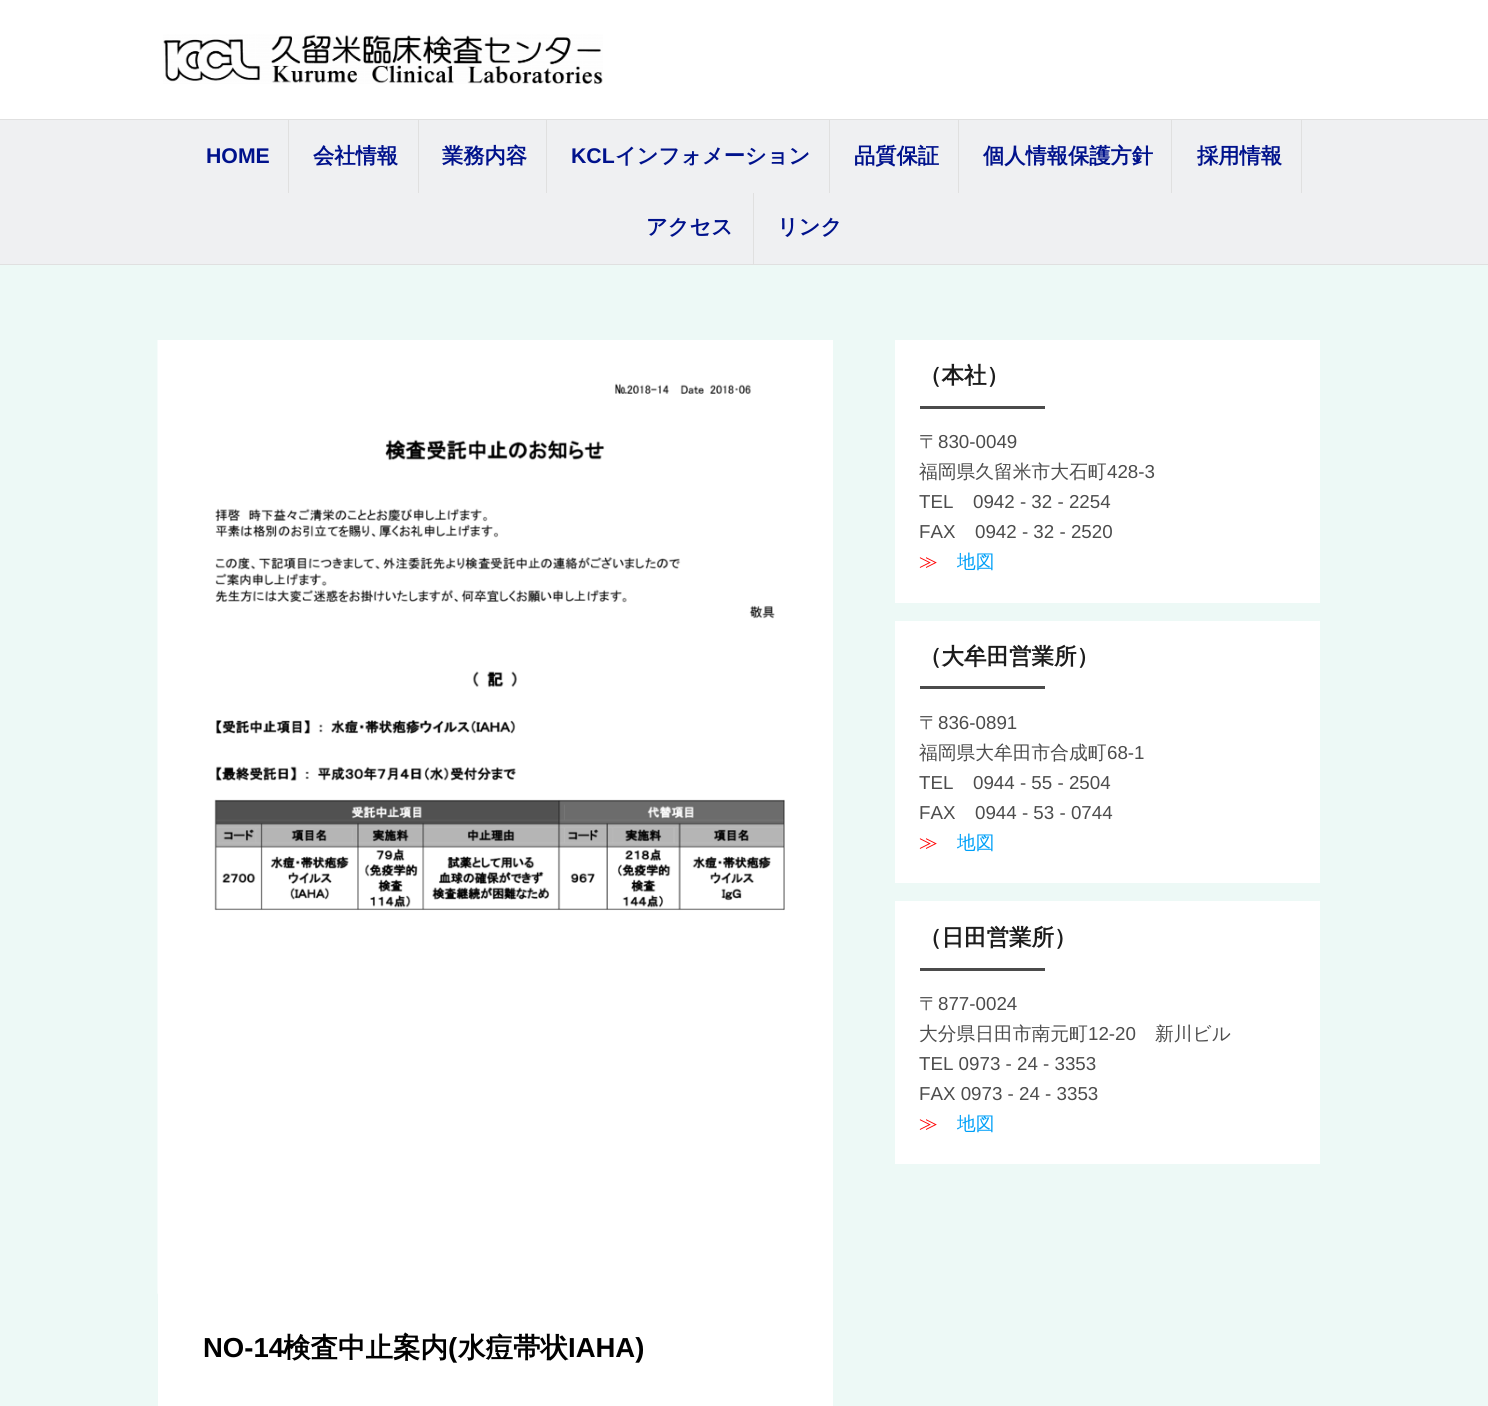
#include <cairo.h>
#include <math.h>
#include <stddef.h>


static void picture(cairo_t *cr, const char *path, double x, double y, double w, double h) {
    cairo_surface_t *image = cairo_image_surface_create_from_png(path);
    cairo_save(cr);
    cairo_set_source_surface(cr, image, x, y);
    cairo_rectangle(cr, x, y, w, h);
    cairo_fill(cr);
    cairo_restore(cr);
    cairo_surface_destroy(image);
}

int main(void) {
    cairo_surface_t *surface = cairo_image_surface_create(CAIRO_FORMAT_RGB24, 1488, 1406);
    cairo_t *cr = cairo_create(surface);
    cairo_font_options_t *options = cairo_font_options_create();
    cairo_font_options_set_hint_metrics(options, CAIRO_HINT_METRICS_OFF);
    cairo_font_options_set_hint_style(options, CAIRO_HINT_STYLE_NONE);
    cairo_set_font_options(cr, options);
    cairo_set_miter_limit(cr, 4);
    cairo_set_source_rgb(cr, 0.929, 0.976, 0.961);
    cairo_paint(cr);
    cairo_set_source_rgb(cr, 1, 1, 1);
    cairo_rectangle(cr, 0, 0, 1488, 119);
    cairo_fill(cr);
    picture(cr, "img1.png", 163, 34, 440, 50);
    cairo_set_source_rgb(cr, 0.937, 0.941, 0.949);
    cairo_rectangle(cr, 0, 120, 1488, 144);
    cairo_fill(cr);
    cairo_set_source_rgb(cr, 0.878, 0.878, 0.878);
    cairo_rectangle(cr, 0, 119, 1488, 1);
    cairo_fill(cr);
    cairo_rectangle(cr, 0, 264, 1488, 1);
    cairo_fill(cr);
    cairo_rectangle(cr, 288, 120, 1, 73);
    cairo_fill(cr);
    cairo_select_font_face(cr, "Liberation Sans", CAIRO_FONT_SLANT_NORMAL, CAIRO_FONT_WEIGHT_BOLD);
    cairo_set_font_size(cr, 21.25);
    cairo_set_source_rgb(cr, 0, 0.071, 0.549);
    cairo_move_to(cr, 206, 163);
    cairo_show_text(cr, "HOME");
    cairo_set_source_rgb(cr, 0.878, 0.878, 0.878);
    cairo_rectangle(cr, 418, 120, 1, 73);
    cairo_fill(cr);
    cairo_select_font_face(cr, "WenQuanYi Zen Hei", CAIRO_FONT_SLANT_NORMAL, CAIRO_FONT_WEIGHT_BOLD);
    cairo_set_source_rgb(cr, 0, 0.071, 0.549);
    cairo_move_to(cr, 313, 163);
    cairo_show_text(cr, "会社情報");
    cairo_set_source_rgb(cr, 0.878, 0.878, 0.878);
    cairo_rectangle(cr, 546, 120, 1, 73);
    cairo_fill(cr);
    cairo_set_source_rgb(cr, 0, 0.071, 0.549);
    cairo_move_to(cr, 442, 163);
    cairo_show_text(cr, "業務内容");
    cairo_set_source_rgb(cr, 0.878, 0.878, 0.878);
    cairo_rectangle(cr, 829, 120, 1, 73);
    cairo_fill(cr);
    cairo_select_font_face(cr, "Liberation Sans", CAIRO_FONT_SLANT_NORMAL, CAIRO_FONT_WEIGHT_BOLD);
    cairo_set_source_rgb(cr, 0, 0.071, 0.549);
    cairo_move_to(cr, 571, 163);
    cairo_show_text(cr, "KCL");
    cairo_select_font_face(cr, "WenQuanYi Zen Hei", CAIRO_FONT_SLANT_NORMAL, CAIRO_FONT_WEIGHT_BOLD);
    cairo_move_to(cr, 615, 163);
    cairo_show_text(cr, "インフォメーション");
    cairo_set_source_rgb(cr, 0.878, 0.878, 0.878);
    cairo_rectangle(cr, 958, 120, 1, 73);
    cairo_fill(cr);
    cairo_set_source_rgb(cr, 0, 0.071, 0.549);
    cairo_move_to(cr, 854, 163);
    cairo_show_text(cr, "品質保証");
    cairo_set_source_rgb(cr, 0.878, 0.878, 0.878);
    cairo_rectangle(cr, 1171, 120, 1, 73);
    cairo_fill(cr);
    cairo_set_source_rgb(cr, 0, 0.071, 0.549);
    cairo_move_to(cr, 983, 163);
    cairo_show_text(cr, "個人情報保護方針");
    cairo_set_source_rgb(cr, 0.878, 0.878, 0.878);
    cairo_rectangle(cr, 1301, 120, 1, 73);
    cairo_fill(cr);
    cairo_set_source_rgb(cr, 0, 0.071, 0.549);
    cairo_move_to(cr, 1197, 163);
    cairo_show_text(cr, "採用情報");
    cairo_set_source_rgb(cr, 0.878, 0.878, 0.878);
    cairo_rectangle(cr, 753, 193, 1, 71);
    cairo_fill(cr);
    cairo_set_source_rgb(cr, 0, 0.071, 0.549);
    cairo_move_to(cr, 646, 234);
    cairo_show_text(cr, "アクセス");
    cairo_move_to(cr, 777, 234);
    cairo_show_text(cr, "リンク");
    cairo_set_source_rgb(cr, 1, 1, 1);
    cairo_rectangle(cr, 895, 340, 425, 263);
    cairo_fill(cr);
    cairo_set_font_size(cr, 22.5);
    cairo_set_source_rgb(cr, 0.11, 0.11, 0.11);
    cairo_move_to(cr, 919, 383);
    cairo_show_text(cr, "（本社）");
    cairo_set_source_rgb(cr, 0.294, 0.294, 0.294);
    cairo_rectangle(cr, 920, 406, 125, 3);
    cairo_fill(cr);
    cairo_select_font_face(cr, "WenQuanYi Zen Hei Medium", CAIRO_FONT_SLANT_NORMAL, CAIRO_FONT_WEIGHT_NORMAL);
    cairo_set_font_size(cr, 18.75);
    cairo_set_source_rgb(cr, 0.298, 0.298, 0.298);
    cairo_move_to(cr, 919, 448);
    cairo_show_text(cr, "〒");
    cairo_select_font_face(cr, "Liberation Sans", CAIRO_FONT_SLANT_NORMAL, CAIRO_FONT_WEIGHT_NORMAL);
    cairo_move_to(cr, 938, 448);
    cairo_show_text(cr, "830-0049");
    cairo_select_font_face(cr, "WenQuanYi Zen Hei Medium", CAIRO_FONT_SLANT_NORMAL, CAIRO_FONT_WEIGHT_NORMAL);
    cairo_move_to(cr, 919, 478);
    cairo_show_text(cr, "福岡県久留米市大石町");
    cairo_select_font_face(cr, "Liberation Sans", CAIRO_FONT_SLANT_NORMAL, CAIRO_FONT_WEIGHT_NORMAL);
    cairo_move_to(cr, 1107, 478);
    cairo_show_text(cr, "428-3");
    cairo_move_to(cr, 919, 508);
    cairo_show_text(cr, "TEL");
    cairo_move_to(cr, 973, 508);
    cairo_show_text(cr, "0942 - 32 - 2254");
    cairo_move_to(cr, 919, 538);
    cairo_show_text(cr, "FAX");
    cairo_move_to(cr, 975, 538);
    cairo_show_text(cr, "0942 - 32 - 2520");
    cairo_select_font_face(cr, "WenQuanYi Zen Hei Medium", CAIRO_FONT_SLANT_NORMAL, CAIRO_FONT_WEIGHT_NORMAL);
    cairo_set_source_rgb(cr, 1, 0, 0);
    cairo_move_to(cr, 919, 568);
    cairo_show_text(cr, "≫");
    cairo_set_source_rgb(cr, 0, 0.627, 0.969);
    cairo_move_to(cr, 957, 568);
    cairo_show_text(cr, "地図");
    cairo_set_source_rgb(cr, 1, 1, 1);
    cairo_rectangle(cr, 895, 621, 425, 262);
    cairo_fill(cr);
    cairo_select_font_face(cr, "WenQuanYi Zen Hei", CAIRO_FONT_SLANT_NORMAL, CAIRO_FONT_WEIGHT_BOLD);
    cairo_set_font_size(cr, 22.5);
    cairo_set_source_rgb(cr, 0.11, 0.11, 0.11);
    cairo_move_to(cr, 919, 664);
    cairo_show_text(cr, "（大牟田営業所）");
    cairo_set_source_rgb(cr, 0.294, 0.294, 0.294);
    cairo_rectangle(cr, 920, 686, 125, 3);
    cairo_fill(cr);
    cairo_select_font_face(cr, "WenQuanYi Zen Hei Medium", CAIRO_FONT_SLANT_NORMAL, CAIRO_FONT_WEIGHT_NORMAL);
    cairo_set_font_size(cr, 18.75);
    cairo_set_source_rgb(cr, 0.298, 0.298, 0.298);
    cairo_move_to(cr, 919, 729);
    cairo_show_text(cr, "〒");
    cairo_select_font_face(cr, "Liberation Sans", CAIRO_FONT_SLANT_NORMAL, CAIRO_FONT_WEIGHT_NORMAL);
    cairo_move_to(cr, 938, 729);
    cairo_show_text(cr, "836-0891");
    cairo_select_font_face(cr, "WenQuanYi Zen Hei Medium", CAIRO_FONT_SLANT_NORMAL, CAIRO_FONT_WEIGHT_NORMAL);
    cairo_move_to(cr, 919, 759);
    cairo_show_text(cr, "福岡県大牟田市合成町");
    cairo_select_font_face(cr, "Liberation Sans", CAIRO_FONT_SLANT_NORMAL, CAIRO_FONT_WEIGHT_NORMAL);
    cairo_move_to(cr, 1107, 759);
    cairo_show_text(cr, "68-1");
    cairo_move_to(cr, 919, 789);
    cairo_show_text(cr, "TEL");
    cairo_move_to(cr, 973, 789);
    cairo_show_text(cr, "0944 - 55 - 2504");
    cairo_move_to(cr, 919, 819);
    cairo_show_text(cr, "FAX");
    cairo_move_to(cr, 975, 819);
    cairo_show_text(cr, "0944 - 53 - 0744");
    cairo_select_font_face(cr, "WenQuanYi Zen Hei Medium", CAIRO_FONT_SLANT_NORMAL, CAIRO_FONT_WEIGHT_NORMAL);
    cairo_set_source_rgb(cr, 1, 0, 0);
    cairo_move_to(cr, 919, 849);
    cairo_show_text(cr, "≫");
    cairo_set_source_rgb(cr, 0, 0.627, 0.969);
    cairo_move_to(cr, 957, 849);
    cairo_show_text(cr, "地図");
    cairo_set_source_rgb(cr, 1, 1, 1);
    cairo_rectangle(cr, 895, 901, 425, 263);
    cairo_fill(cr);
    cairo_select_font_face(cr, "WenQuanYi Zen Hei", CAIRO_FONT_SLANT_NORMAL, CAIRO_FONT_WEIGHT_BOLD);
    cairo_set_font_size(cr, 22.5);
    cairo_set_source_rgb(cr, 0.11, 0.11, 0.11);
    cairo_move_to(cr, 919, 945);
    cairo_show_text(cr, "（日田営業所）");
    cairo_set_source_rgb(cr, 0.294, 0.294, 0.294);
    cairo_rectangle(cr, 920, 968, 125, 3);
    cairo_fill(cr);
    cairo_select_font_face(cr, "WenQuanYi Zen Hei Medium", CAIRO_FONT_SLANT_NORMAL, CAIRO_FONT_WEIGHT_NORMAL);
    cairo_set_font_size(cr, 18.75);
    cairo_set_source_rgb(cr, 0.298, 0.298, 0.298);
    cairo_move_to(cr, 919, 1010);
    cairo_show_text(cr, "〒");
    cairo_select_font_face(cr, "Liberation Sans", CAIRO_FONT_SLANT_NORMAL, CAIRO_FONT_WEIGHT_NORMAL);
    cairo_move_to(cr, 938, 1010);
    cairo_show_text(cr, "877-0024");
    cairo_select_font_face(cr, "WenQuanYi Zen Hei Medium", CAIRO_FONT_SLANT_NORMAL, CAIRO_FONT_WEIGHT_NORMAL);
    cairo_move_to(cr, 919, 1040);
    cairo_show_text(cr, "大分県日田市南元町");
    cairo_select_font_face(cr, "Liberation Sans", CAIRO_FONT_SLANT_NORMAL, CAIRO_FONT_WEIGHT_NORMAL);
    cairo_move_to(cr, 1088, 1040);
    cairo_show_text(cr, "12-20");
    cairo_select_font_face(cr, "WenQuanYi Zen Hei Medium", CAIRO_FONT_SLANT_NORMAL, CAIRO_FONT_WEIGHT_NORMAL);
    cairo_move_to(cr, 1155, 1040);
    cairo_show_text(cr, "新川ビル");
    cairo_select_font_face(cr, "Liberation Sans", CAIRO_FONT_SLANT_NORMAL, CAIRO_FONT_WEIGHT_NORMAL);
    cairo_move_to(cr, 919, 1070);
    cairo_show_text(cr, "TEL 0973 - 24 - 3353");
    cairo_move_to(cr, 919, 1100);
    cairo_show_text(cr, "FAX 0973 - 24 - 3353");
    cairo_select_font_face(cr, "WenQuanYi Zen Hei Medium", CAIRO_FONT_SLANT_NORMAL, CAIRO_FONT_WEIGHT_NORMAL);
    cairo_set_source_rgb(cr, 1, 0, 0);
    cairo_move_to(cr, 919, 1130);
    cairo_show_text(cr, "≫");
    cairo_set_source_rgb(cr, 0, 0.627, 0.969);
    cairo_move_to(cr, 957, 1130);
    cairo_show_text(cr, "地図");
    cairo_set_source_rgb(cr, 1, 1, 1);
    cairo_rectangle(cr, 158, 340, 675, 1066);
    cairo_fill(cr);
    picture(cr, "img2.png", 157, 340, 628, 954);
    cairo_select_font_face(cr, "Liberation Sans", CAIRO_FONT_SLANT_NORMAL, CAIRO_FONT_WEIGHT_BOLD);
    cairo_set_font_size(cr, 27.5);
    cairo_set_source_rgb(cr, 0, 0, 0);
    cairo_move_to(cr, 203, 1357);
    cairo_show_text(cr, "NO-14");
    cairo_select_font_face(cr, "WenQuanYi Zen Hei", CAIRO_FONT_SLANT_NORMAL, CAIRO_FONT_WEIGHT_BOLD);
    cairo_move_to(cr, 283, 1357);
    cairo_show_text(cr, "検査中止案内");
    cairo_select_font_face(cr, "Liberation Sans", CAIRO_FONT_SLANT_NORMAL, CAIRO_FONT_WEIGHT_BOLD);
    cairo_move_to(cr, 448, 1357);
    cairo_show_text(cr, "(");
    cairo_select_font_face(cr, "WenQuanYi Zen Hei", CAIRO_FONT_SLANT_NORMAL, CAIRO_FONT_WEIGHT_BOLD);
    cairo_move_to(cr, 458, 1357);
    cairo_show_text(cr, "水痘帯状");
    cairo_select_font_face(cr, "Liberation Sans", CAIRO_FONT_SLANT_NORMAL, CAIRO_FONT_WEIGHT_BOLD);
    cairo_move_to(cr, 568, 1357);
    cairo_show_text(cr, "IAHA)");
    cairo_surface_write_to_png(surface, "page.png");
    cairo_font_options_destroy(options);
    cairo_destroy(cr);
    cairo_surface_destroy(surface);
    return 0;
}
